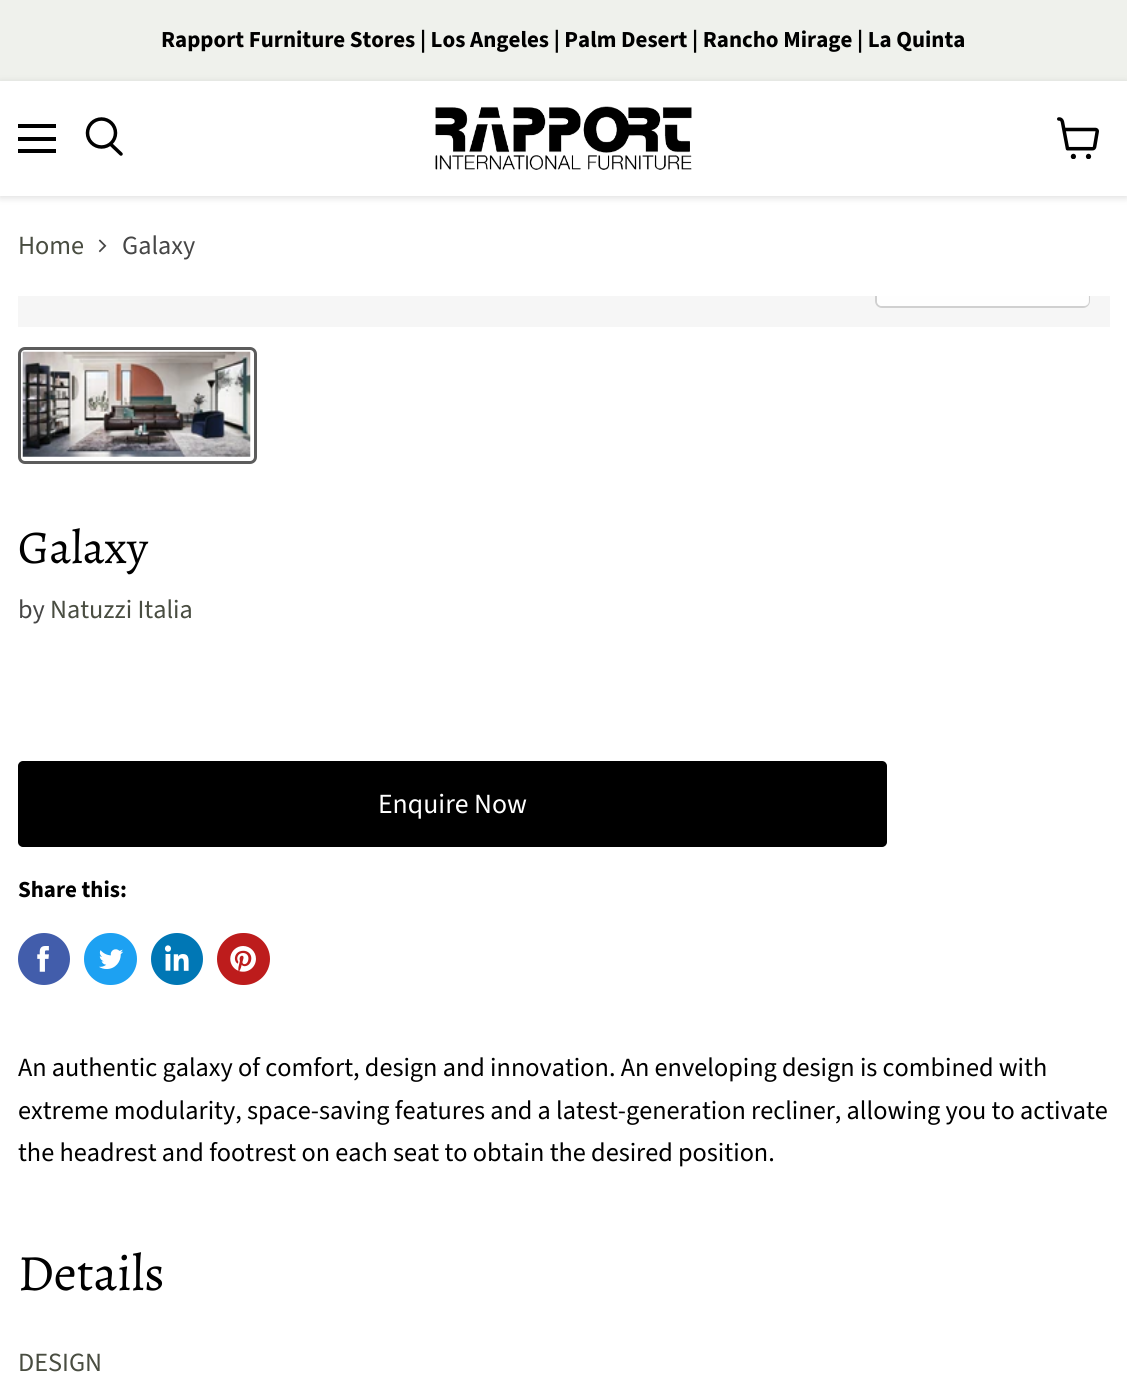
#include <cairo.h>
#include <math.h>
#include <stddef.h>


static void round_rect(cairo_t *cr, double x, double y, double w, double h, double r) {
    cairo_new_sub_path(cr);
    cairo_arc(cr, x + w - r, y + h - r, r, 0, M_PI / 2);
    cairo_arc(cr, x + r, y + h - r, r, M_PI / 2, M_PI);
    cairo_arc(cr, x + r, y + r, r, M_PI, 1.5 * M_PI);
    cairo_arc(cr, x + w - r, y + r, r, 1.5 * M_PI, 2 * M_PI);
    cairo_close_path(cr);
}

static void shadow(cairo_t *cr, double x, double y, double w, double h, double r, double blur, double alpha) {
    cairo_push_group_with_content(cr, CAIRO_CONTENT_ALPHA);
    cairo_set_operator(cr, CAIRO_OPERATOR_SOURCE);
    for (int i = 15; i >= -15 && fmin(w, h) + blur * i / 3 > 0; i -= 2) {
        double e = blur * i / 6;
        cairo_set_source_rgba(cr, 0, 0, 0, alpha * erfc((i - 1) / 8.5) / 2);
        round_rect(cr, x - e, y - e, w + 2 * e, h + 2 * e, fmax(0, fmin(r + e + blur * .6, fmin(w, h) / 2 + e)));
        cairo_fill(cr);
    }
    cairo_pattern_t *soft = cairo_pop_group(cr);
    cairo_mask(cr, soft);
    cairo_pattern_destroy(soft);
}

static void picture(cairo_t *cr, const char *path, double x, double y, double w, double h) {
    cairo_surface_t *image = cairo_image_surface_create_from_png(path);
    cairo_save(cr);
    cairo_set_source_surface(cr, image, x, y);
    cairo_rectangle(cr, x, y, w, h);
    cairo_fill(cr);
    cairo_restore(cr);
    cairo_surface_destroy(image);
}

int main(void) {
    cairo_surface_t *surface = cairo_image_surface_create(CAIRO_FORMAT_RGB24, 1127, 1383);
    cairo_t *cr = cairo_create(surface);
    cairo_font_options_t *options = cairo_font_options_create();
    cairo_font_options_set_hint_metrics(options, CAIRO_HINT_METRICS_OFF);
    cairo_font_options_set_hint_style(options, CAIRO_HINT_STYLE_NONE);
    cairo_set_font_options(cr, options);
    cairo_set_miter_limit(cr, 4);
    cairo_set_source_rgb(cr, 1, 1, 1);
    cairo_paint(cr);
    cairo_set_source_rgb(cr, 0.937, 0.945, 0.925);
    cairo_rectangle(cr, 0, 0, 1127, 81);
    cairo_fill(cr);
    cairo_select_font_face(cr, "Source Sans Pro", CAIRO_FONT_SLANT_NORMAL, CAIRO_FONT_WEIGHT_BOLD);
    cairo_set_font_size(cr, 22.95);
    cairo_set_source_rgb(cr, 0, 0, 0);
    cairo_move_to(cr, 161, 47);
    cairo_show_text(cr, "Rapport Furniture Stores | Los Angeles | Palm Desert | Rancho Mirage | La Quinta");
    cairo_set_source_rgb(cr, 0.502, 0.502, 0.502);
    shadow(cr, 0, 82, 1127, 116, 0, 3.5, 0.25);
    cairo_set_source_rgb(cr, 1, 1, 1);
    cairo_rectangle(cr, 0, 81, 1127, 115);
    cairo_fill(cr);
    cairo_set_source_rgb(cr, 0, 0, 0);
    cairo_rectangle(cr, 18, 124, 38, 4);
    cairo_fill(cr);
    cairo_rectangle(cr, 18, 137, 38, 4);
    cairo_fill(cr);
    cairo_rectangle(cr, 18, 149, 38, 4);
    cairo_fill(cr);
    cairo_new_path(cr);
    cairo_move_to(cr, 121, 154);
    cairo_line_to(cr, 111, 144.5);
    cairo_set_line_width(cr, 3.5);
    cairo_set_line_cap(cr, CAIRO_LINE_CAP_ROUND);
    cairo_stroke(cr);
    cairo_arc(cr, 101.5, 133, 14, 0, 2 * M_PI);
    cairo_set_line_cap(cr, CAIRO_LINE_CAP_BUTT);
    cairo_stroke(cr);
    picture(cr, "img1.png", 435, 106, 257, 64);
    picture(cr, "img2.png", 1057, 117, 42, 42);
    cairo_select_font_face(cr, "Source Sans Pro", CAIRO_FONT_SLANT_NORMAL, CAIRO_FONT_WEIGHT_NORMAL);
    cairo_set_font_size(cr, 26.25);
    cairo_set_source_rgb(cr, 0.286, 0.302, 0.255);
    cairo_move_to(cr, 18, 254);
    cairo_show_text(cr, "Home");
    picture(cr, "img3.png", 98, 239, 9, 14);
    cairo_set_source_rgb(cr, 0.275, 0.275, 0.275);
    cairo_move_to(cr, 122, 254);
    cairo_show_text(cr, "Galaxy");
    cairo_set_source_rgb(cr, 0.961, 0.961, 0.961);
    cairo_rectangle(cr, 18, 296, 1092, 31);
    cairo_fill(cr);
    cairo_save(cr);
    cairo_rectangle(cr, 18, 296, 1092, 31);
    cairo_clip(cr);
    round_rect(cr, 876, 257, 213, 50, 6);
    cairo_set_source_rgb(cr, 0.816, 0.816, 0.816);
    cairo_set_line_width(cr, 2);
    cairo_stroke(cr);
    cairo_restore(cr);
    cairo_set_source_rgba(cr, 1, 1, 1, 0.9);
    cairo_new_path(cr);
    cairo_move_to(cr, 877, 296);
    cairo_line_to(cr, 1089, 296);
    cairo_line_to(cr, 1089, 301);
    cairo_curve_to(cr, 1089, 304, 1087, 306, 1084, 306);
    cairo_line_to(cr, 882, 306);
    cairo_curve_to(cr, 879, 306, 877, 304, 877, 301);
    cairo_close_path(cr);
    cairo_fill(cr);
    round_rect(cr, 19.5, 348.5, 236, 114, 5.5);
    cairo_set_source_rgb(cr, 0.361, 0.361, 0.361);
    cairo_set_line_width(cr, 3);
    cairo_stroke(cr);
    picture(cr, "img4.png", 22, 351, 229, 106);
    cairo_select_font_face(cr, "Alegreya", CAIRO_FONT_SLANT_NORMAL, CAIRO_FONT_WEIGHT_NORMAL);
    cairo_set_font_size(cr, 47);
    cairo_set_source_rgb(cr, 0, 0, 0);
    cairo_move_to(cr, 18, 563);
    cairo_show_text(cr, "Galaxy");
    cairo_select_font_face(cr, "Source Sans Pro", CAIRO_FONT_SLANT_NORMAL, CAIRO_FONT_WEIGHT_NORMAL);
    cairo_set_font_size(cr, 26.25);
    cairo_set_source_rgb(cr, 0.275, 0.275, 0.275);
    cairo_move_to(cr, 18, 618);
    cairo_show_text(cr, "by");
    cairo_set_source_rgb(cr, 0.286, 0.302, 0.255);
    cairo_move_to(cr, 50, 618);
    cairo_show_text(cr, "Natuzzi Italia");
    cairo_set_source_rgb(cr, 0, 0, 0);
    round_rect(cr, 19, 762, 867, 84, 4);
    cairo_fill_preserve(cr);
    cairo_set_line_width(cr, 2);
    cairo_stroke(cr);
    cairo_set_font_size(cr, 27.75);
    cairo_set_source_rgb(cr, 1, 1, 1);
    cairo_move_to(cr, 378, 813);
    cairo_show_text(cr, "Enquire Now");
    cairo_select_font_face(cr, "Source Sans Pro", CAIRO_FONT_SLANT_NORMAL, CAIRO_FONT_WEIGHT_BOLD);
    cairo_set_font_size(cr, 22.95);
    cairo_set_source_rgb(cr, 0, 0, 0);
    cairo_move_to(cr, 18, 897);
    cairo_show_text(cr, "Share this:");
    cairo_set_source_rgb(cr, 0.259, 0.365, 0.671);
    cairo_new_path(cr);
    cairo_arc(cr, 44, 959, 26, 0, 2 * M_PI);
    cairo_fill(cr);
    picture(cr, "img5.png", 37, 946, 12, 26);
    cairo_set_source_rgb(cr, 0.114, 0.631, 0.949);
    round_rect(cr, 84, 933, 53, 52, 26);
    cairo_fill(cr);
    picture(cr, "img6.png", 99, 949, 25, 20);
    cairo_set_source_rgb(cr, 0, 0.467, 0.71);
    cairo_arc(cr, 177, 959, 26, 0, 2 * M_PI);
    cairo_fill(cr);
    picture(cr, "img7.png", 164, 945, 25, 26);
    cairo_set_source_rgb(cr, 0.741, 0.11, 0.11);
    round_rect(cr, 217, 933, 53, 52, 26);
    cairo_fill(cr);
    picture(cr, "img8.png", 230, 946, 26, 26);
    cairo_select_font_face(cr, "Source Sans Pro", CAIRO_FONT_SLANT_NORMAL, CAIRO_FONT_WEIGHT_NORMAL);
    cairo_set_font_size(cr, 26.25);
    cairo_set_source_rgb(cr, 0, 0, 0);
    cairo_move_to(cr, 18, 1076);
    cairo_show_text(cr, "An authentic galaxy of comfort, design and innovation. An enveloping design is combined with");
    cairo_move_to(cr, 18, 1119);
    cairo_show_text(cr, "extreme modularity, space-saving features and a latest-generation recliner, allowing you to activate");
    cairo_move_to(cr, 18, 1161);
    cairo_show_text(cr, "the headrest and footrest on each seat to obtain the desired position.");
    cairo_select_font_face(cr, "Alegreya", CAIRO_FONT_SLANT_NORMAL, CAIRO_FONT_WEIGHT_NORMAL);
    cairo_set_font_size(cr, 51);
    cairo_move_to(cr, 18, 1290);
    cairo_show_text(cr, "Details");
    cairo_select_font_face(cr, "Source Sans Pro", CAIRO_FONT_SLANT_NORMAL, CAIRO_FONT_WEIGHT_NORMAL);
    cairo_set_font_size(cr, 26.25);
    cairo_set_source_rgb(cr, 0.286, 0.302, 0.255);
    cairo_move_to(cr, 18, 1371);
    cairo_show_text(cr, "DESIGN");
    cairo_surface_write_to_png(surface, "page.png");
    cairo_font_options_destroy(options);
    cairo_destroy(cr);
    cairo_surface_destroy(surface);
    return 0;
}
